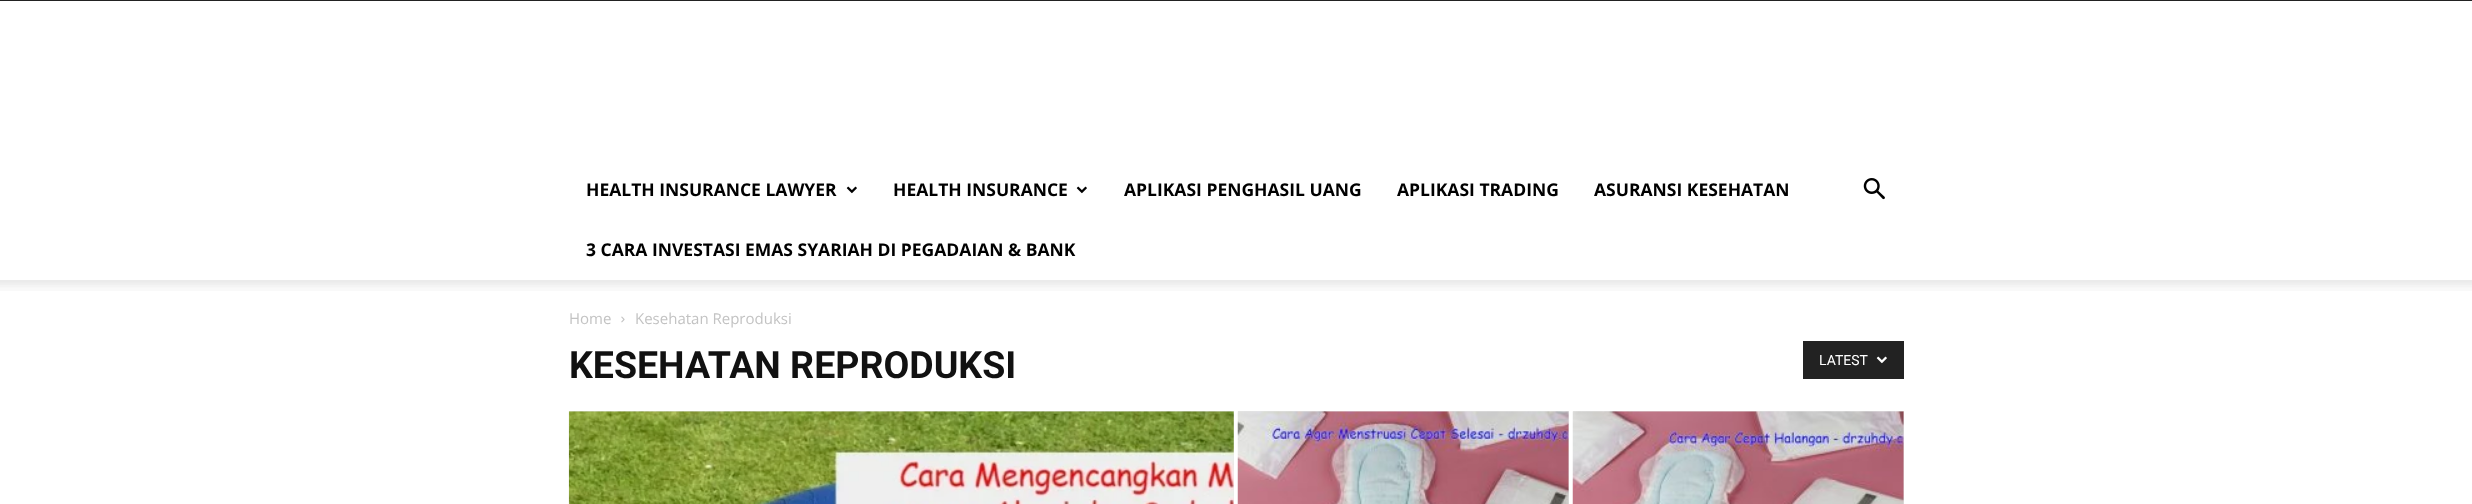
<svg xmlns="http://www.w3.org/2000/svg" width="2472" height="504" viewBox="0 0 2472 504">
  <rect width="100%" height="100%" fill="#ffffff"/>
  <rect x="0" y="0" width="2472" height="1" fill="#222222"/>
  <text x="586" y="196" font-family="Open Sans" font-size="17.5" font-weight="bold" fill="#000000">HEALTH INSURANCE LAWYER</text>
  <image x="846" y="186" width="11" height="8" href="img1.png"/>
  <text x="893" y="196" font-family="Open Sans" font-size="17.5" font-weight="bold" fill="#000000">HEALTH INSURANCE</text>
  <image x="1076" y="186" width="11" height="8" href="img1.png"/>
  <text x="1124" y="196" font-family="Open Sans" font-size="17.5" font-weight="bold" fill="#000000">APLIKASI PENGHASIL UANG</text>
  <text x="1397" y="196" font-family="Open Sans" font-size="17.5" font-weight="bold" fill="#000000">APLIKASI TRADING</text>
  <text x="1594" y="196" font-family="Open Sans" font-size="17.5" font-weight="bold" fill="#000000">ASURANSI KESEHATAN</text>
  <text x="586" y="256" font-family="Open Sans" font-size="17.5" font-weight="bold" fill="#000000">3 CARA INVESTASI EMAS SYARIAH DI PEGADAIAN &amp; BANK</text>
  <image x="1863" y="178" width="22" height="22" href="img2.png"/>
  <image x="0" y="280" width="2472" height="11" href="img3.png"/>
  <text x="569" y="324" font-family="Open Sans" font-size="15" fill="#c3c3c3">Home</text>
  <image x="621" y="316" width="4" height="7" href="img4.png"/>
  <text x="635" y="324" font-family="Open Sans" font-size="15" fill="#c3c3c3">Kesehatan Reproduksi</text>
  <text x="569" y="378" font-family="Roboto" font-size="37.5" font-weight="bold" fill="#111111">KESEHATAN REPRODUKSI</text>
  <rect x="1803" y="341" width="101" height="38" fill="#222222"/>
  <text x="1819" y="365" font-family="Roboto" font-size="14" fill="#ffffff">LATEST</text>
  <image x="1876" y="356" width="11" height="8" href="img5.png"/>
  <rect x="569" y="411" width="665" height="93" fill="#e5e5e5"/>
  <image x="568" y="411" width="666" height="93" href="img6.png"/>
  <rect x="1238" y="411" width="331" height="93" fill="#e5e5e5"/>
  <image x="1237" y="411" width="332" height="93" href="img7.png"/>
  <rect x="1573" y="411" width="331" height="93" fill="#e5e5e5"/>
  <image x="1572" y="411" width="332" height="93" href="img8.png"/>
</svg>
